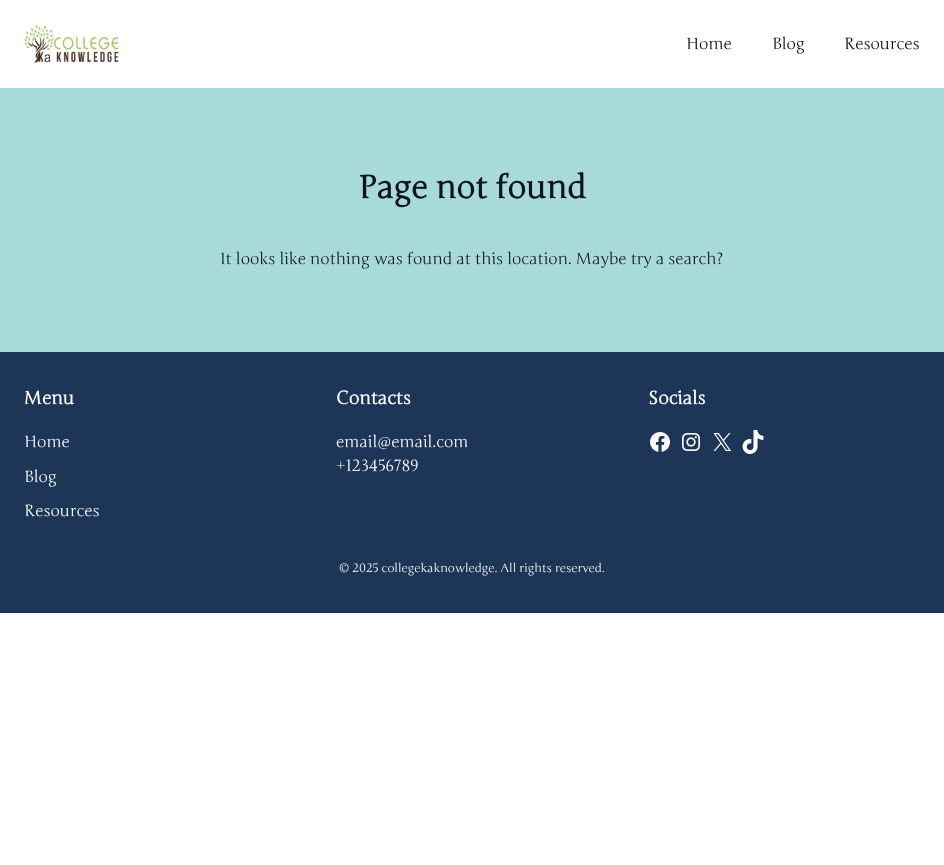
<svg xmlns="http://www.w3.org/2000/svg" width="944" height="865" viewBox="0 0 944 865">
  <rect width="100%" height="100%" fill="#ffffff"/>
  <image x="24" y="25" width="95" height="38" href="img1.png"/>
  <text x="686" y="49" font-family="Junge" font-size="16" fill="#000000">Home</text>
  <text x="772" y="49" font-family="Junge" font-size="16" fill="#000000">Blog</text>
  <text x="844" y="49" font-family="Junge" font-size="16" fill="#000000">Resources</text>
  <rect x="0" y="88" width="944" height="264" fill="#a8dadc"/>
  <text x="358" y="198" font-family="Junge" font-size="32" font-weight="bold" fill="#0d141a">Page not found</text>
  <text x="220" y="264" font-family="Junge" font-size="16" fill="#0d141a">It looks like nothing was found at this location. Maybe try a search?</text>
  <rect x="0" y="352" width="944" height="261" fill="#1d3557"/>
  <text x="24" y="404" font-family="Junge" font-size="18" font-weight="bold" fill="#ffffff">Menu</text>
  <text x="24" y="447" font-family="Junge" font-size="16" fill="#ffffff">Home</text>
  <text x="24" y="482" font-family="Junge" font-size="16" fill="#ffffff">Blog</text>
  <text x="24" y="516" font-family="Junge" font-size="16" fill="#ffffff">Resources</text>
  <text x="336" y="404" font-family="Junge" font-size="18" font-weight="bold" fill="#ffffff">Contacts</text>
  <text x="336" y="447" font-family="Junge" font-size="16" fill="#ffffff">email@email.com</text>
  <text x="336" y="471" font-family="Junge" font-size="16" fill="#ffffff">+123456789</text>
  <text x="648" y="404" font-family="Junge" font-size="18" font-weight="bold" fill="#ffffff">Socials</text>
  <image x="650" y="432" width="20" height="20" href="img2.png"/>
  <image x="682" y="433" width="18" height="18" href="img3.png"/>
  <image x="713" y="433" width="18" height="18" href="img4.png"/>
  <image x="742" y="430" width="22" height="24" href="img5.png"/>
  <text x="339" y="572" font-family="Junge" font-size="12" fill="#ffffff">© 2025 collegekaknowledge. All rights reserved.</text>
</svg>
